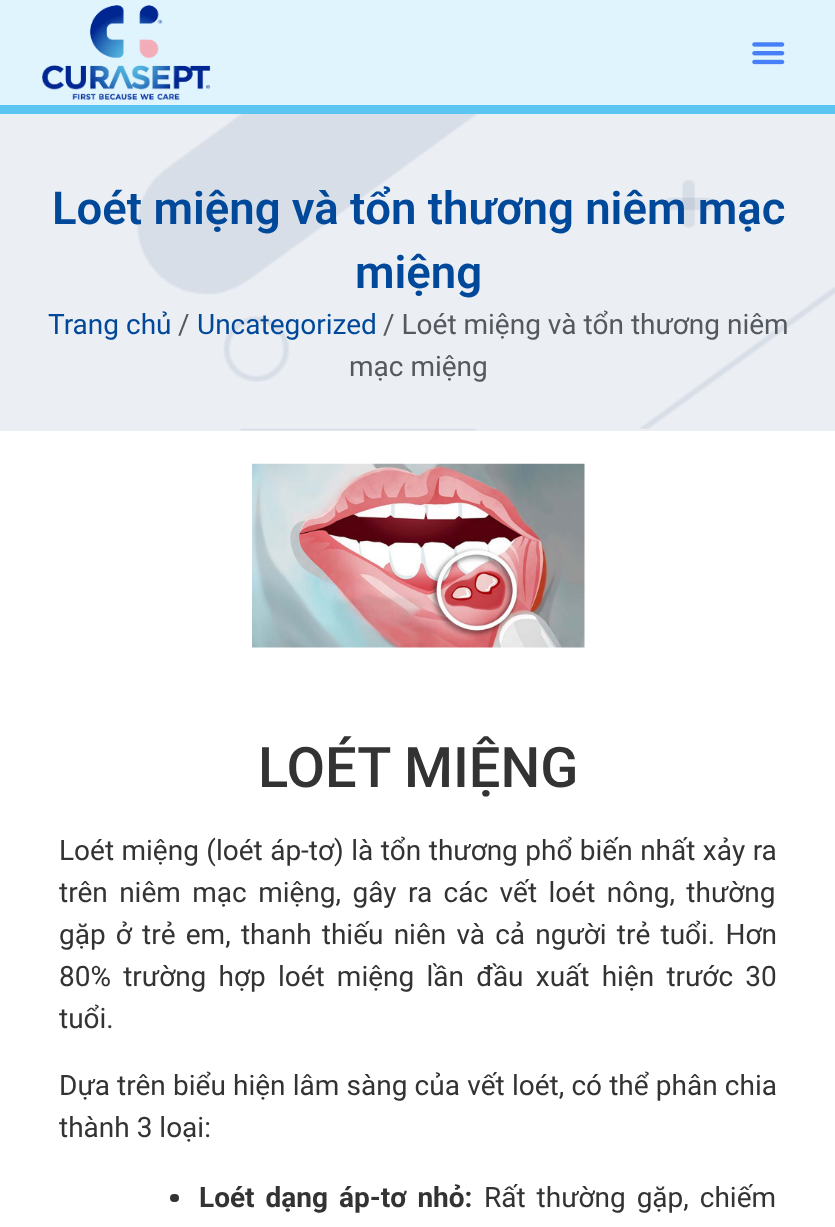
<svg xmlns="http://www.w3.org/2000/svg" width="835" height="1227" viewBox="0 0 835 1227">
  <rect width="100%" height="100%" fill="#ffffff"/>
  <rect x="0" y="0" width="835" height="105" fill="#e0f4fd"/>
  <rect x="0" y="105" width="835" height="9" fill="#5bc5f2"/>
  <image x="42" y="5" width="169" height="95" href="img1.png"/>
  <image x="752" y="42" width="33" height="23" href="img2.png"/>
  <rect x="0" y="430" width="835" height="1" fill="#f1f1f1"/>
  <image x="0" y="114" width="835" height="317" href="img3.png"/>
  <text x="52" y="224" font-family="Roboto" font-size="45.5" font-weight="600" fill="#004899">Loét miệng và tổn thương niêm mạc</text>
  <text x="355" y="288" font-family="Roboto" font-size="45.5" font-weight="600" fill="#004899">miệng</text>
  <text x="48" y="334" font-family="Roboto" font-size="28" fill="#004899">Trang chủ</text>
  <text x="178" y="334" font-family="Roboto" font-size="28" fill="#54595f">/</text>
  <text x="197" y="334" font-family="Roboto" font-size="28" fill="#004899">Uncategorized</text>
  <text x="383" y="334" font-family="Roboto" font-size="28" fill="#54595f">/ Loét miệng và tổn thương niêm</text>
  <text x="349" y="376" font-family="Roboto" font-size="28" fill="#54595f">mạc miệng</text>
  <image x="252" y="463" width="333" height="185" href="img4.png"/>
  <text x="258" y="787" font-family="Roboto" font-size="56" font-weight="500" fill="#333333">LOÉT MIỆNG</text>
  <text x="59" y="860" word-spacing="0.5" font-family="Roboto" font-size="28" fill="#333333">Loét miệng (loét áp-tơ) là tổn thương phổ biến nhất xảy ra</text>
  <text x="59" y="902" word-spacing="4.5" font-family="Roboto" font-size="28" fill="#333333">trên niêm mạc miệng, gây ra các vết loét nông, thường</text>
  <text x="59" y="944" word-spacing="3.25" font-family="Roboto" font-size="28" fill="#333333">gặp ở trẻ em, thanh thiếu niên và cả người trẻ tuổi. Hơn</text>
  <text x="59" y="986" word-spacing="5.25" font-family="Roboto" font-size="28" fill="#333333">80% trường hợp loét miệng lần đầu xuất hiện trước 30</text>
  <text x="59" y="1028" font-family="Roboto" font-size="28" fill="#333333">tuổi.</text>
  <text x="59" y="1095" word-spacing="0.25" font-family="Roboto" font-size="28" fill="#333333">Dựa trên biểu hiện lâm sàng của vết loét, có thể phân chia</text>
  <text x="59" y="1137" font-family="Roboto" font-size="28" fill="#333333">thành 3 loại:</text>
  <rect x="170" y="1194" width="9" height="8" rx="4" fill="#333333"/>
  <text x="199" y="1207" word-spacing="4" font-family="Roboto" font-size="28" font-weight="bold" fill="#333333">Loét dạng áp-tơ nhỏ:</text>
  <text x="484" y="1207" word-spacing="4" font-family="Roboto" font-size="28" fill="#333333">Rất thường gặp, chiếm</text>
</svg>
